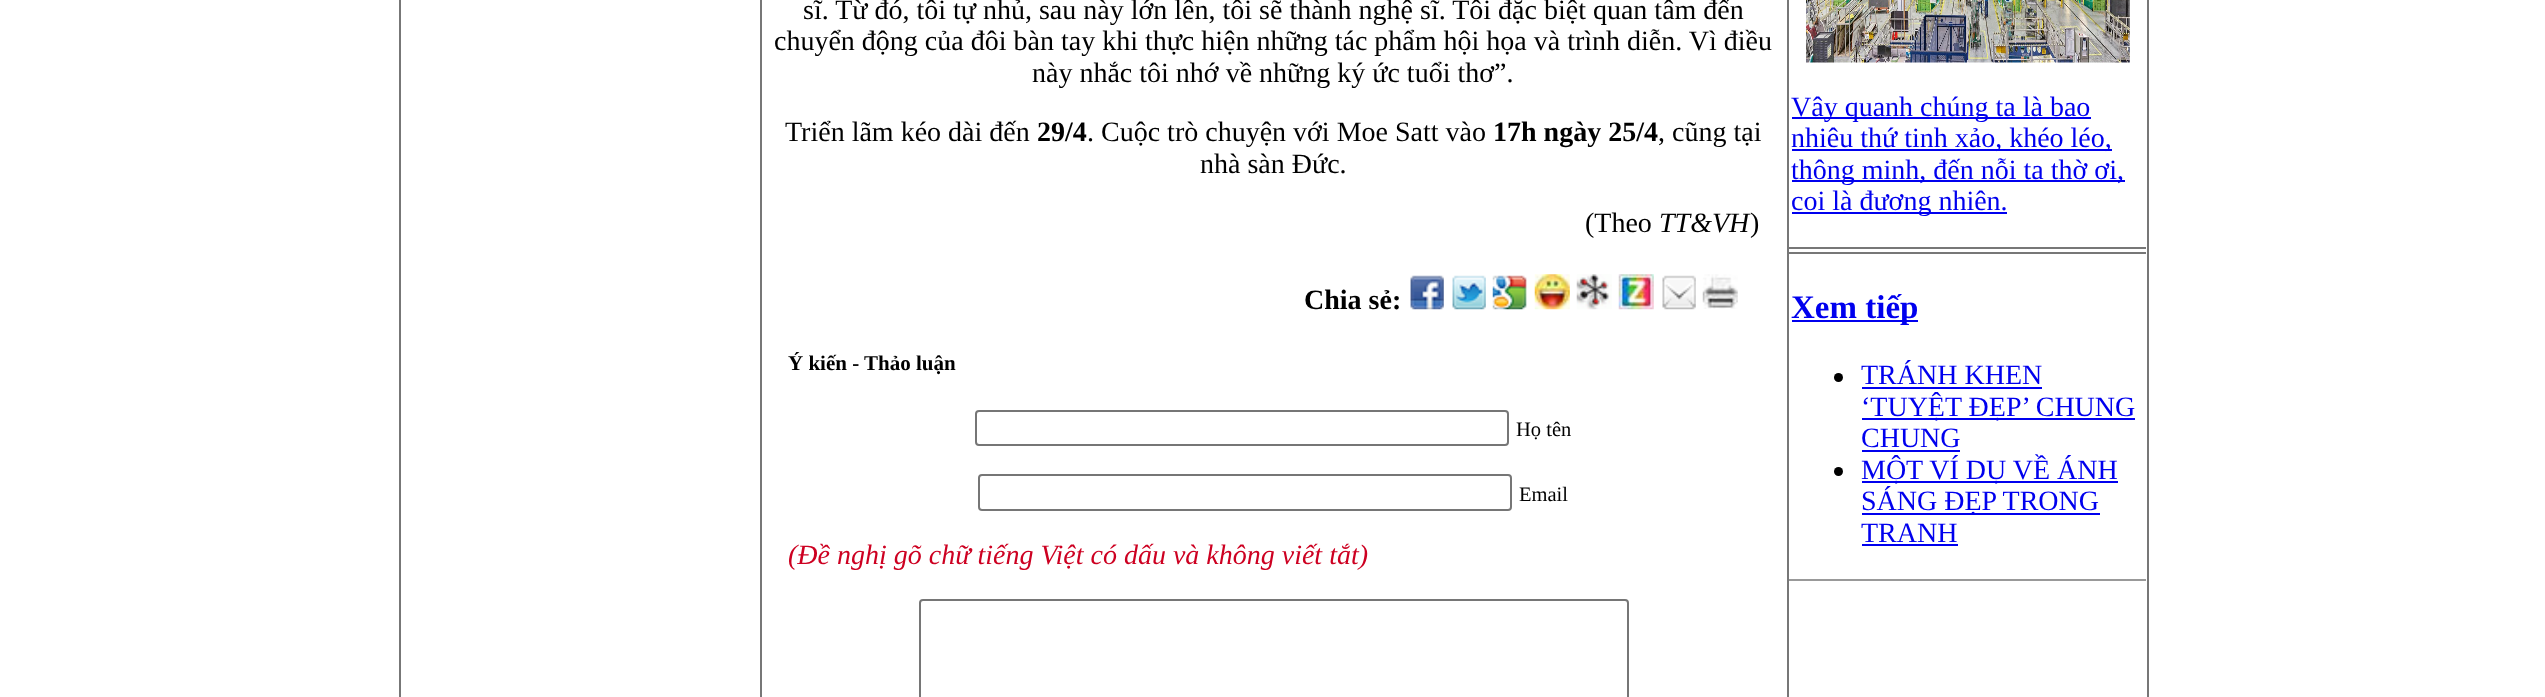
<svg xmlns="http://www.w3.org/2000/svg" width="2545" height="697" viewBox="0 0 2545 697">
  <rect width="100%" height="100%" fill="#ffffff"/>
  <rect x="2147" y="0" width="2" height="697" fill="#777777"/>
  <rect x="399" y="0" width="2" height="697" fill="#777777"/>
  <rect x="760" y="0" width="2" height="697" fill="#777777"/>
  <text x="803" y="19" font-family="Liberation Serif" font-size="28" fill="#000000">sĩ. Từ đó, tôi tự nhủ, sau này lớn lên, tôi sẽ thành nghệ sĩ. Tôi đặc biệt quan tâm đến</text>
  <text x="774" y="50" font-family="Liberation Serif" font-size="28" fill="#000000">chuyển động của đôi bàn tay khi thực hiện những tác phẩm hội họa và trình diễn. Vì điều</text>
  <text x="1032" y="82" font-family="Liberation Serif" font-size="28" fill="#000000">này nhắc tôi nhớ về những ký ức tuổi thơ”.</text>
  <text x="785" y="141" font-family="Liberation Serif" font-size="28" fill="#000000">Triển lãm kéo dài đến</text>
  <text x="1037" y="141" font-family="Liberation Serif" font-size="28" font-weight="bold" fill="#000000">29/4</text>
  <text x="1087" y="141" font-family="Liberation Serif" font-size="28" fill="#000000">. Cuộc trò chuyện với Moe Satt vào</text>
  <text x="1493" y="141" font-family="Liberation Serif" font-size="28" font-weight="bold" fill="#000000">17h ngày 25/4</text>
  <text x="1658" y="141" font-family="Liberation Serif" font-size="28" fill="#000000">, cũng tại</text>
  <text x="1200" y="173" font-family="Liberation Serif" font-size="28" fill="#000000">nhà sàn Đức.</text>
  <text x="1585" y="232" font-family="Liberation Serif" font-size="28" fill="#000000">(Theo</text>
  <text x="1659" y="232" font-family="Liberation Serif" font-size="28" font-style="italic" fill="#000000">TT&amp;VH</text>
  <text x="1750" y="232" font-family="Liberation Serif" font-size="28" fill="#000000">)</text>
  <text x="1304" y="309" font-family="Liberation Serif" font-size="28" font-weight="bold" fill="#000000">Chia sẻ:</text>
  <image x="1410" y="275" width="34" height="35" href="img1.png"/>
  <image x="1452" y="275" width="34" height="35" href="img2.png"/>
  <image x="1492" y="275" width="35" height="35" href="img3.png"/>
  <image x="1534" y="274" width="36" height="36" href="img4.png"/>
  <image x="1576" y="274" width="36" height="36" href="img5.png"/>
  <image x="1618" y="274" width="36" height="36" href="img6.png"/>
  <image x="1662" y="275" width="34" height="35" href="img7.png"/>
  <image x="1702" y="274" width="36" height="35" href="img8.png"/>
  <text x="788" y="370" font-family="Liberation Serif" font-size="21" font-weight="bold" fill="#000000">Ý kiến - Thảo luận</text>
  <rect x="976" y="411" width="532" height="34" rx="3" fill="none" stroke="#767676" stroke-width="2"/>
  <text x="1516" y="436" font-family="Liberation Serif" font-size="20.5" fill="#000000">Họ tên</text>
  <rect x="979" y="475" width="532" height="35" rx="3" fill="none" stroke="#767676" stroke-width="2"/>
  <text x="1519" y="501" font-family="Liberation Serif" font-size="20.5" fill="#000000">Email</text>
  <text x="788" y="564" font-family="Liberation Serif" font-size="28" font-style="italic" fill="#cd0021">(Đề nghị gõ chữ tiếng Việt có dấu và không viết tắt)</text>
  <rect x="920" y="600" width="708" height="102" rx="3" fill="none" stroke="#767676" stroke-width="2"/>
  <rect x="1787" y="0" width="2" height="697" fill="#777777"/>
  <rect x="1789" y="247" width="357" height="2" fill="#777777"/>
  <image x="1806" y="0" width="324" height="63" href="img9.png"/>
  <rect x="1792" y="117" width="299" height="2" fill="#0000ee"/>
  <text x="1791" y="116" font-family="Liberation Serif" font-size="28" fill="#0000ee">Vây quanh chúng ta là bao</text>
  <rect x="1792" y="149" width="320" height="2" fill="#0000ee"/>
  <text x="1791" y="147" font-family="Liberation Serif" font-size="28" fill="#0000ee">nhiêu thứ tinh xảo, khéo léo,</text>
  <rect x="1792" y="180" width="333" height="2" fill="#0000ee"/>
  <text x="1791" y="179" font-family="Liberation Serif" font-size="28" fill="#0000ee">thông minh, đến nỗi ta thờ ơi,</text>
  <rect x="1792" y="212" width="215" height="2" fill="#0000ee"/>
  <text x="1791" y="210" font-family="Liberation Serif" font-size="28" fill="#0000ee">coi là đương nhiên.</text>
  <rect x="1789" y="252" width="357" height="2" fill="#777777"/>
  <rect x="1789" y="579" width="357" height="2" fill="#999999"/>
  <rect x="1792" y="320" width="126" height="2" fill="#0000ee"/>
  <text x="1791" y="318" font-family="Liberation Serif" font-size="33" font-weight="bold" fill="#0000ee">Xem tiếp</text>
  <circle cx="1838.5" cy="377.5" r="4.5" fill="#000000"/>
  <text x="1861" y="384" font-family="Liberation Serif" font-size="28" fill="#0000ee">TRÁNH KHEN</text>
  <rect x="1862" y="387" width="180" height="2" fill="#0000ee"/>
  <rect x="1862" y="418" width="273" height="2" fill="#0000ee"/>
  <text x="1861" y="416" font-family="Liberation Serif" font-size="28" fill="#0000ee">‘TUYỆT ĐẸP’ CHUNG</text>
  <text x="1861" y="447" font-family="Liberation Serif" font-size="28" fill="#0000ee">CHUNG</text>
  <rect x="1862" y="450" width="98" height="2" fill="#0000ee"/>
  <circle cx="1838.5" cy="471.5" r="4.5" fill="#000000"/>
  <rect x="1862" y="481" width="256" height="2" fill="#0000ee"/>
  <text x="1861" y="479" font-family="Liberation Serif" font-size="28" fill="#0000ee">MỘT VÍ DỤ VỀ ÁNH</text>
  <rect x="1862" y="513" width="238" height="2" fill="#0000ee"/>
  <text x="1861" y="510" font-family="Liberation Serif" font-size="28" fill="#0000ee">SÁNG ĐẸP TRONG</text>
  <text x="1861" y="542" font-family="Liberation Serif" font-size="28" fill="#0000ee">TRANH</text>
  <rect x="1862" y="544" width="96" height="2" fill="#0000ee"/>
</svg>
